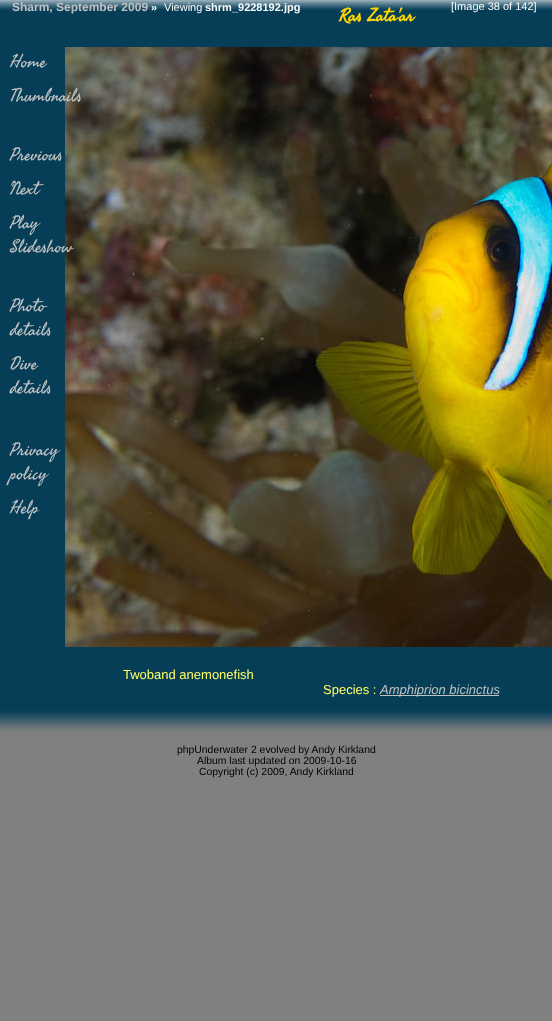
<svg xmlns="http://www.w3.org/2000/svg" width="552" height="1021" viewBox="0 0 552 1021">
  <rect width="100%" height="100%" fill="#808080"/>
  <rect x="0" y="10" width="552" height="701" fill="#063e58"/>
  <image x="0" y="0" width="552" height="10" href="img1.png"/>
  <text x="12" y="11" font-family="Liberation Sans" font-size="12" font-weight="bold" fill="#c0c0c0">Sharm, September 2009</text>
  <text x="151" y="11" font-family="Liberation Sans" font-size="11" font-weight="bold" fill="#fafafa">»</text>
  <text x="164" y="11" font-family="Liberation Sans" font-size="11" fill="#fafafa">Viewing</text>
  <text x="205" y="11" font-family="Liberation Sans" font-size="11" font-weight="bold" fill="#fafafa">shrm_9228192.jpg</text>
  <text x="339" y="21" font-family="Seaweed Script" font-size="18" font-weight="bold" fill="#ffd700">Ras Zata'ar</text>
  <text x="451" y="10" font-family="Liberation Sans" font-size="11" fill="#fafafa">[Image 38 of 142]</text>
  <text x="10" y="67" font-family="Seaweed Script" font-size="18" fill="#c0c0c0">Home</text>
  <image x="65" y="47" width="487" height="600" href="img2.png"/>
  <text x="10" y="101" font-family="Seaweed Script" font-size="18" fill="#c0c0c0">Thumbnails</text>
  <text x="10" y="160" font-family="Seaweed Script" font-size="18" fill="#c0c0c0">Previous</text>
  <text x="10" y="194" font-family="Seaweed Script" font-size="18" fill="#c0c0c0">Next</text>
  <text x="10" y="228" font-family="Seaweed Script" font-size="18" fill="#c0c0c0">Play</text>
  <text x="10" y="252" font-family="Seaweed Script" font-size="18" fill="#c0c0c0">Slideshow</text>
  <text x="10" y="311" font-family="Seaweed Script" font-size="18" fill="#c0c0c0">Photo</text>
  <text x="10" y="335" font-family="Seaweed Script" font-size="18" fill="#c0c0c0">details</text>
  <text x="10" y="369" font-family="Seaweed Script" font-size="18" fill="#c0c0c0">Dive</text>
  <text x="10" y="393" font-family="Seaweed Script" font-size="18" fill="#c0c0c0">details</text>
  <text x="10" y="455" font-family="Seaweed Script" font-size="18" fill="#c0c0c0">Privacy</text>
  <text x="10" y="479" font-family="Seaweed Script" font-size="18" fill="#c0c0c0">policy</text>
  <text x="10" y="513" font-family="Seaweed Script" font-size="18" fill="#c0c0c0">Help</text>
  <text x="123" y="679" font-family="Liberation Sans" font-size="13" fill="#ffff66">Twoband anemonefish</text>
  <text x="323" y="694" font-family="Liberation Sans" font-size="13" fill="#ffff66">Species :</text>
  <rect x="380" y="695" width="119" height="1" fill="#c0c0c0"/>
  <text x="380" y="694" font-family="Liberation Sans" font-size="13" font-style="italic" fill="#c0c0c0">Amphiprion bicinctus</text>
  <image x="0" y="711" width="552" height="23" href="img3.png"/>
  <text x="177" y="753" font-family="Liberation Sans" font-size="10.4" fill="#000000">phpUnderwater 2 evolved by Andy Kirkland</text>
  <text x="197" y="764" font-family="Liberation Sans" font-size="10.4" fill="#000000">Album last updated on 2009-10-16</text>
  <text x="199" y="775" font-family="Liberation Sans" font-size="10.4" fill="#000000">Copyright (c) 2009, Andy Kirkland</text>
</svg>
